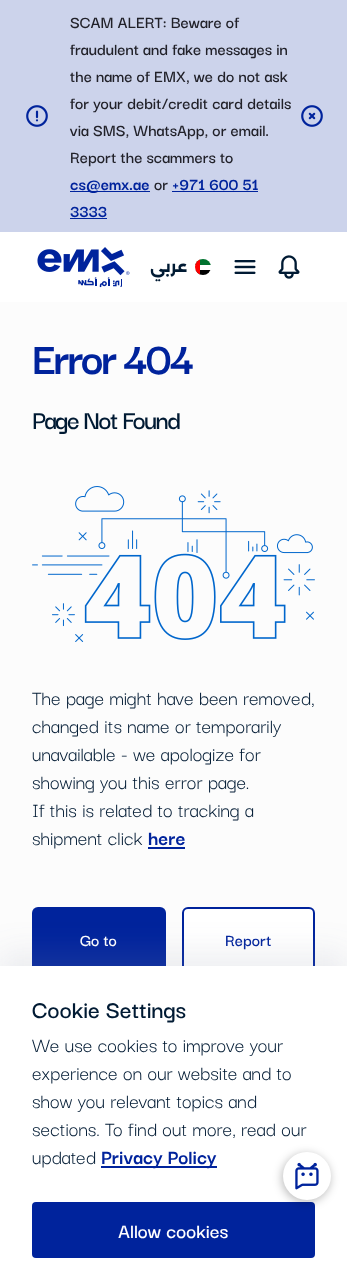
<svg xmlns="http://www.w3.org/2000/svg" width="347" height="1286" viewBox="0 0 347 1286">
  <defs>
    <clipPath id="clip1"><rect x="195" y="259" width="16" height="16" rx="8"/></clipPath>
    <filter id="blur1" x="-50%" y="-200%" width="200%" height="500%"><feGaussianBlur stdDeviation="15"/></filter>
    <filter id="blur2" x="-50%" y="-200%" width="200%" height="500%"><feGaussianBlur stdDeviation="5"/></filter>
  </defs>
  <rect width="100%" height="100%" fill="#fcfcfc"/>
  <rect x="0" y="0" width="347" height="232" fill="#ccd3eb"/>
  <image x="26" y="105" width="22" height="22" href="img1.png"/>
  <text x="70" y="28" font-family="Darker Grotesque" font-size="18" font-weight="600" fill="#212129">SCAM ALERT: Beware of</text>
  <text x="70" y="55" font-family="Darker Grotesque" font-size="18" font-weight="600" fill="#212129">fraudulent and fake messages in</text>
  <text x="70" y="82" font-family="Darker Grotesque" font-size="18" font-weight="600" fill="#212129">the name of EMX, we do not ask</text>
  <text x="70" y="109" font-family="Darker Grotesque" font-size="18" font-weight="600" fill="#212129">for your debit/credit card details</text>
  <text x="70" y="136" font-family="Darker Grotesque" font-size="18" font-weight="600" fill="#212129">via SMS, WhatsApp, or email.</text>
  <text x="70" y="163" font-family="Darker Grotesque" font-size="18" font-weight="600" fill="#212129">Report the scammers to</text>
  <rect x="70" y="191" width="80" height="1" fill="#00239c"/>
  <text x="70" y="190" font-family="Darker Grotesque" font-size="18" font-weight="bold" fill="#00239c">cs@emx.ae</text>
  <text x="154" y="190" font-family="Darker Grotesque" font-size="18" font-weight="600" fill="#212129">or</text>
  <text x="172" y="190" font-family="Darker Grotesque" font-size="18" font-weight="bold" fill="#00239c">+971 600 51</text>
  <rect x="172" y="191" width="86" height="1" fill="#00239c"/>
  <text x="70" y="217" font-family="Darker Grotesque" font-size="18" font-weight="bold" fill="#00239c">3333</text>
  <rect x="70" y="218" width="37" height="1" fill="#00239c"/>
  <image x="301" y="105" width="22" height="22" href="img2.png"/>
  <rect x="0" y="232" width="347" height="70" fill="#ffffff"/>
  <image x="37" y="247" width="93" height="41" href="img3.png"/>
  <text x="187" y="272" font-family="Alexandria" font-size="16" font-weight="bold" direction="rtl" fill="#001a33">عربي</text>
  <g clip-path="url(#clip1)">
    <rect x="195" y="259" width="16" height="6" fill="#00732f"/>
    <rect x="195" y="270" width="16" height="5" fill="#000000"/>
    <rect x="195" y="259" width="5" height="16" fill="#ff0000"/>
  </g>
  <image x="234" y="260" width="22" height="14" href="img4.png"/>
  <image x="278" y="255" width="22" height="24" href="img5.png"/>
  <text x="32" y="374" font-family="Darker Grotesque" font-size="48" font-weight="bold" letter-spacing="-2.5" fill="#00239c">Error 404</text>
  <text x="32" y="429" font-family="Darker Grotesque" font-size="28" font-weight="600" letter-spacing="-1.4" fill="#001a33">Page Not Found</text>
  <image x="32" y="486" width="283" height="156" href="img6.png"/>
  <text x="32" y="705" font-family="Darker Grotesque" font-size="21.6" fill="#001a33">The page might have been removed,</text>
  <text x="32" y="733" font-family="Darker Grotesque" font-size="21.6" fill="#001a33">changed its name or temporarily</text>
  <text x="32" y="761" font-family="Darker Grotesque" font-size="21.6" fill="#001a33">unavailable - we apologize for</text>
  <text x="32" y="789" font-family="Darker Grotesque" font-size="21.6" fill="#001a33">showing you this error page.</text>
  <text x="32" y="817" font-family="Darker Grotesque" font-size="21.6" fill="#001a33">If this is related to tracking a</text>
  <text x="32" y="845" font-family="Darker Grotesque" font-size="21.6" fill="#001a33">shipment click</text>
  <text x="148" y="845" font-family="Darker Grotesque" font-size="21.6" font-weight="bold" fill="#00239c">here</text>
  <rect x="148" y="847" width="37" height="2" fill="#00239c"/>
  <rect x="32" y="907" width="134" height="100" rx="6" fill="#00239c"/>
  <text x="80" y="946" font-family="Darker Grotesque" font-size="18" font-weight="600" fill="#ffffff">Go to</text>
  <rect x="183" y="908" width="131" height="98" rx="5" fill="#ffffff" stroke="#00239c" stroke-width="2"/>
  <text x="225" y="946" font-family="Darker Grotesque" font-size="18" font-weight="600" fill="#00239c">Report</text>
  <rect x="0" y="952" width="347" height="320" fill="#8e96a6" fill-opacity="0.15" filter="url(#blur1)"/>
  <rect x="0" y="966" width="347" height="320" fill="#ffffff"/>
  <text x="32" y="1018" font-family="Darker Grotesque" font-size="26" font-weight="600" fill="#001a33">Cookie Settings</text>
  <text x="32" y="1052" font-family="Darker Grotesque" font-size="21.6" fill="#001a33">We use cookies to improve your</text>
  <text x="32" y="1080" font-family="Darker Grotesque" font-size="21.6" fill="#001a33">experience on our website and to</text>
  <text x="32" y="1108" font-family="Darker Grotesque" font-size="21.6" fill="#001a33">show you relevant topics and</text>
  <text x="32" y="1136" font-family="Darker Grotesque" font-size="21.6" fill="#001a33">sections. To find out more, read our</text>
  <text x="32" y="1164" font-family="Darker Grotesque" font-size="21.6" fill="#001a33">updated</text>
  <rect x="101" y="1166" width="116" height="2" fill="#00239c"/>
  <text x="101" y="1164" font-family="Darker Grotesque" font-size="21.6" font-weight="bold" fill="#00239c">Privacy Policy</text>
  <rect x="32" y="1202" width="283" height="56" rx="4" fill="#00239c"/>
  <text x="118" y="1238" font-family="Darker Grotesque" font-size="21.6" font-weight="600" fill="#ffffff">Allow cookies</text>
  <rect x="282" y="1154" width="48" height="48" rx="24" fill="#000000" fill-opacity="0.28" filter="url(#blur2)"/>
  <circle cx="307" cy="1176" r="24" fill="#ffffff"/>
  <image x="295" y="1162" width="24" height="28" href="img7.png"/>
</svg>
